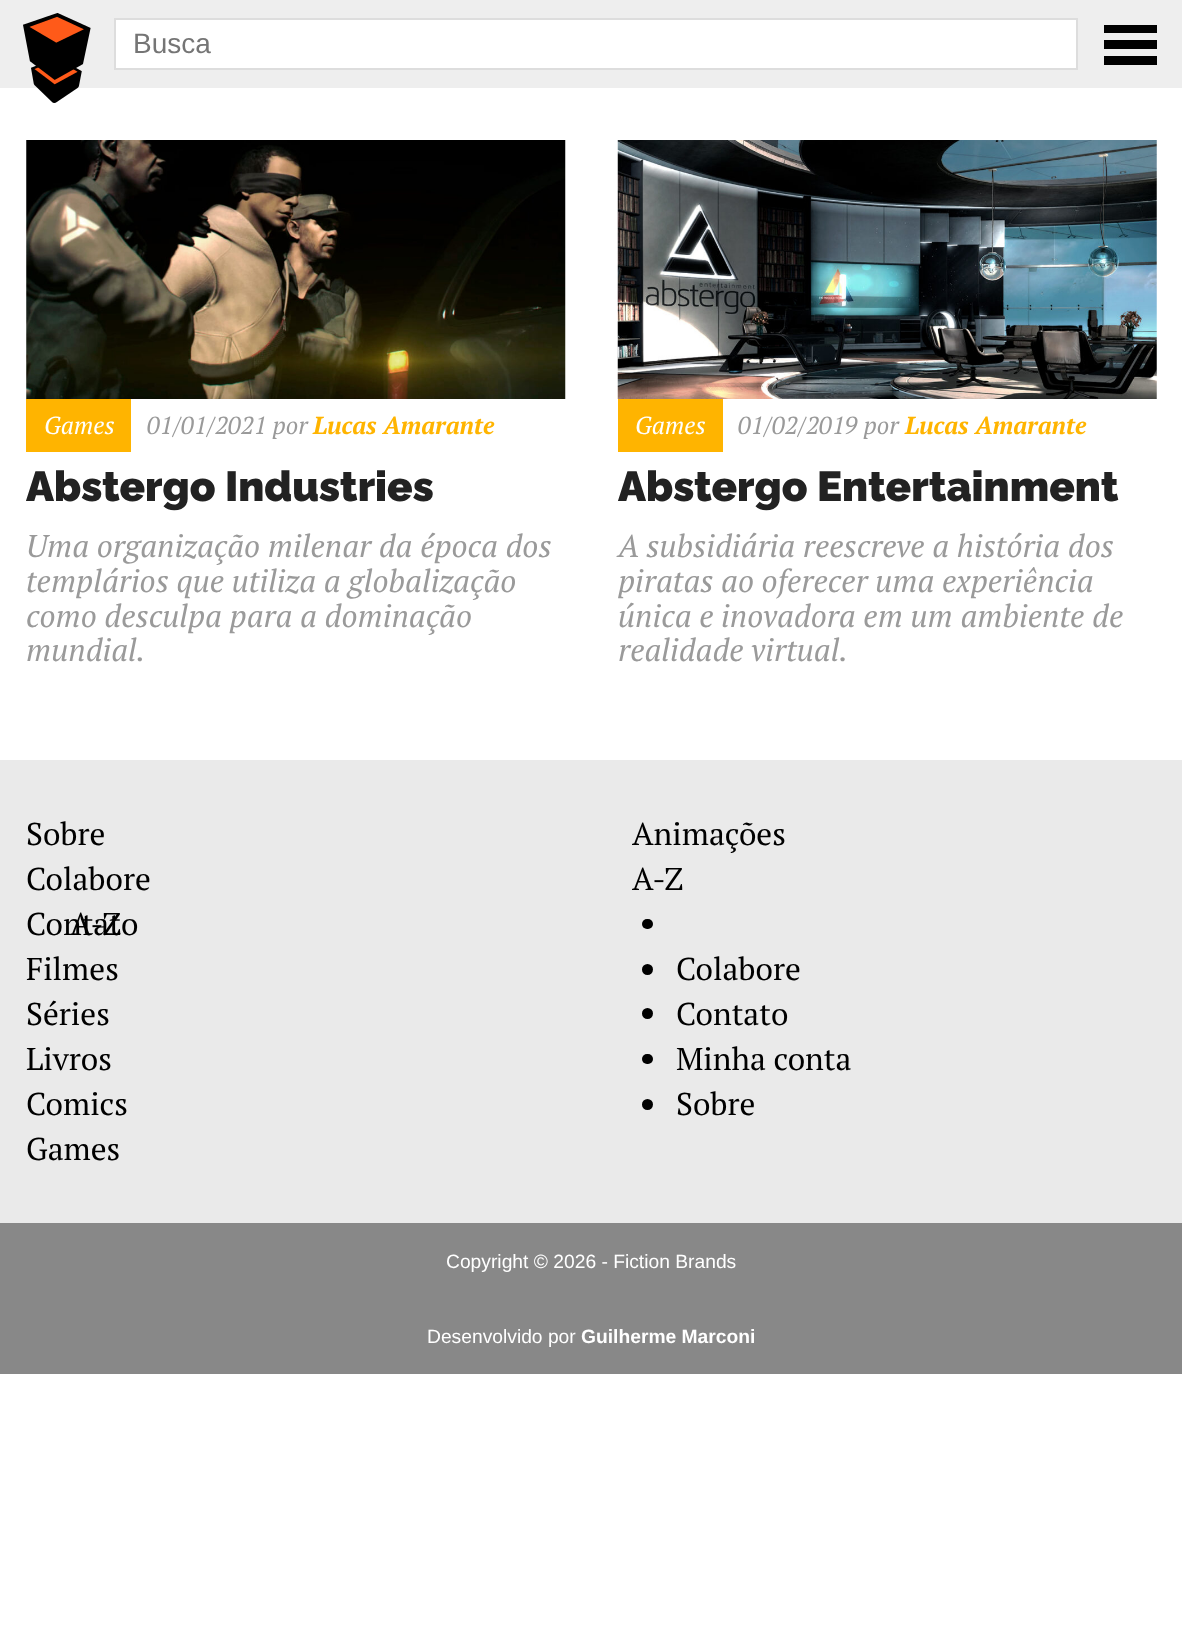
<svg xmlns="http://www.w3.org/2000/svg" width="1182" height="1626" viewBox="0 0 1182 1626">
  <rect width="100%" height="100%" fill="#ffffff"/>
  <rect x="0" y="0" width="1182" height="88" fill="#eeeeee"/>
  <image x="23" y="13" width="68" height="90" href="img1.png"/>
  <rect x="115" y="19" width="962" height="50" fill="#ffffff" stroke="#dddddd" stroke-width="2"/>
  <text x="133" y="53" font-family="Liberation Sans" font-size="28" fill="#757575">Busca</text>
  <rect x="1104" y="40" width="53" height="9" fill="#000000"/>
  <rect x="1104" y="25" width="53" height="8" fill="#000000"/>
  <rect x="1104" y="56" width="53" height="9" fill="#000000"/>
  <image x="26" y="140" width="540" height="259" href="img2.png"/>
  <rect x="26" y="399" width="105" height="53" fill="#ffb400"/>
  <text x="44" y="434" font-family="PT Serif" font-size="24.5" font-style="italic" fill="#ffffff">Games</text>
  <text x="147" y="434" font-family="PT Serif" font-size="24.5" font-style="italic" fill="#9a9a9a">01/01/2021 por</text>
  <text x="313" y="434" font-family="PT Serif" font-size="24.5" font-weight="bold" font-style="italic" fill="#ffb400">Lucas Amarante</text>
  <text x="26" y="501" font-family="Raleway" font-size="42" font-weight="100" fill="#222222">Abstergo Industries</text>
  <text x="26" y="557" font-family="PT Serif" font-size="31.5" font-style="italic" fill="#9a9a9a">Uma organização milenar da época dos</text>
  <text x="26" y="592" font-family="PT Serif" font-size="31.5" font-style="italic" fill="#9a9a9a">templários que utiliza a globalização</text>
  <text x="26" y="627" font-family="PT Serif" font-size="31.5" font-style="italic" fill="#9a9a9a">como desculpa para a dominação</text>
  <text x="26" y="661" font-family="PT Serif" font-size="31.5" font-style="italic" fill="#9a9a9a">mundial.</text>
  <image x="617" y="140" width="540" height="259" href="img3.png"/>
  <rect x="618" y="399" width="105" height="53" fill="#ffb400"/>
  <text x="635" y="434" font-family="PT Serif" font-size="24.5" font-style="italic" fill="#ffffff">Games</text>
  <text x="738" y="434" font-family="PT Serif" font-size="24.5" font-style="italic" fill="#9a9a9a">01/02/2019 por</text>
  <text x="905" y="434" font-family="PT Serif" font-size="24.5" font-weight="bold" font-style="italic" fill="#ffb400">Lucas Amarante</text>
  <text x="618" y="501" font-family="Raleway" font-size="42" font-weight="100" fill="#222222">Abstergo Entertainment</text>
  <text x="618" y="557" font-family="PT Serif" font-size="31.5" font-style="italic" fill="#9a9a9a">A subsidiária reescreve a história dos</text>
  <text x="618" y="592" font-family="PT Serif" font-size="31.5" font-style="italic" fill="#9a9a9a">piratas ao oferecer uma experiência</text>
  <text x="618" y="627" font-family="PT Serif" font-size="31.5" font-style="italic" fill="#9a9a9a">única e inovadora em um ambiente de</text>
  <text x="618" y="661" font-family="PT Serif" font-size="31.5" font-style="italic" fill="#9a9a9a">realidade virtual.</text>
  <rect x="0" y="760" width="1182" height="463" fill="#eaeaea"/>
  <text x="26" y="845" font-family="PT Serif" font-size="31.5" fill="#000000">Sobre</text>
  <text x="26" y="890" font-family="PT Serif" font-size="31.5" fill="#000000">Colabore</text>
  <text x="70" y="935" font-family="PT Serif" font-size="31.5" fill="#000000">A-Z</text>
  <text x="26" y="935" font-family="PT Serif" font-size="31.5" fill="#000000">Contato</text>
  <text x="632" y="845" font-family="PT Serif" font-size="31.5" fill="#000000">Animações</text>
  <text x="632" y="890" font-family="PT Serif" font-size="31.5" fill="#000000">A-Z</text>
  <text x="26" y="980" font-family="PT Serif" font-size="31.5" fill="#000000">Filmes</text>
  <text x="26" y="1025" font-family="PT Serif" font-size="31.5" fill="#000000">Séries</text>
  <text x="26" y="1070" font-family="PT Serif" font-size="31.5" fill="#000000">Livros</text>
  <text x="26" y="1115" font-family="PT Serif" font-size="31.5" fill="#000000">Comics</text>
  <text x="26" y="1160" font-family="PT Serif" font-size="31.5" fill="#000000">Games</text>
  <rect x="642" y="919" width="11" height="10" rx="5" fill="#000000"/>
  <circle cx="647.5" cy="969.5" r="5.5" fill="#000000"/>
  <text x="676" y="980" font-family="PT Serif" font-size="31.5" fill="#000000">Colabore</text>
  <circle cx="647.5" cy="1013.5" r="5.5" fill="#000000"/>
  <text x="676" y="1025" font-family="PT Serif" font-size="31.5" fill="#000000">Contato</text>
  <rect x="642" y="1054" width="11" height="10" rx="5" fill="#000000"/>
  <text x="676" y="1070" font-family="PT Serif" font-size="31.5" fill="#000000">Minha conta</text>
  <circle cx="647.5" cy="1104.5" r="5.5" fill="#000000"/>
  <text x="676" y="1115" font-family="PT Serif" font-size="31.5" fill="#000000">Sobre</text>
  <rect x="0" y="1223" width="1182" height="151" fill="#888888"/>
  <text x="446" y="1268" font-family="Liberation Sans" font-size="19.25" fill="#ffffff">Copyright © 2026 - Fiction Brands</text>
  <text x="427" y="1343" font-family="Liberation Sans" font-size="19.25" fill="#ffffff">Desenvolvido por</text>
  <text x="581" y="1343" font-family="Liberation Sans" font-size="19.25" font-weight="bold" fill="#ffffff">Guilherme Marconi</text>
</svg>
